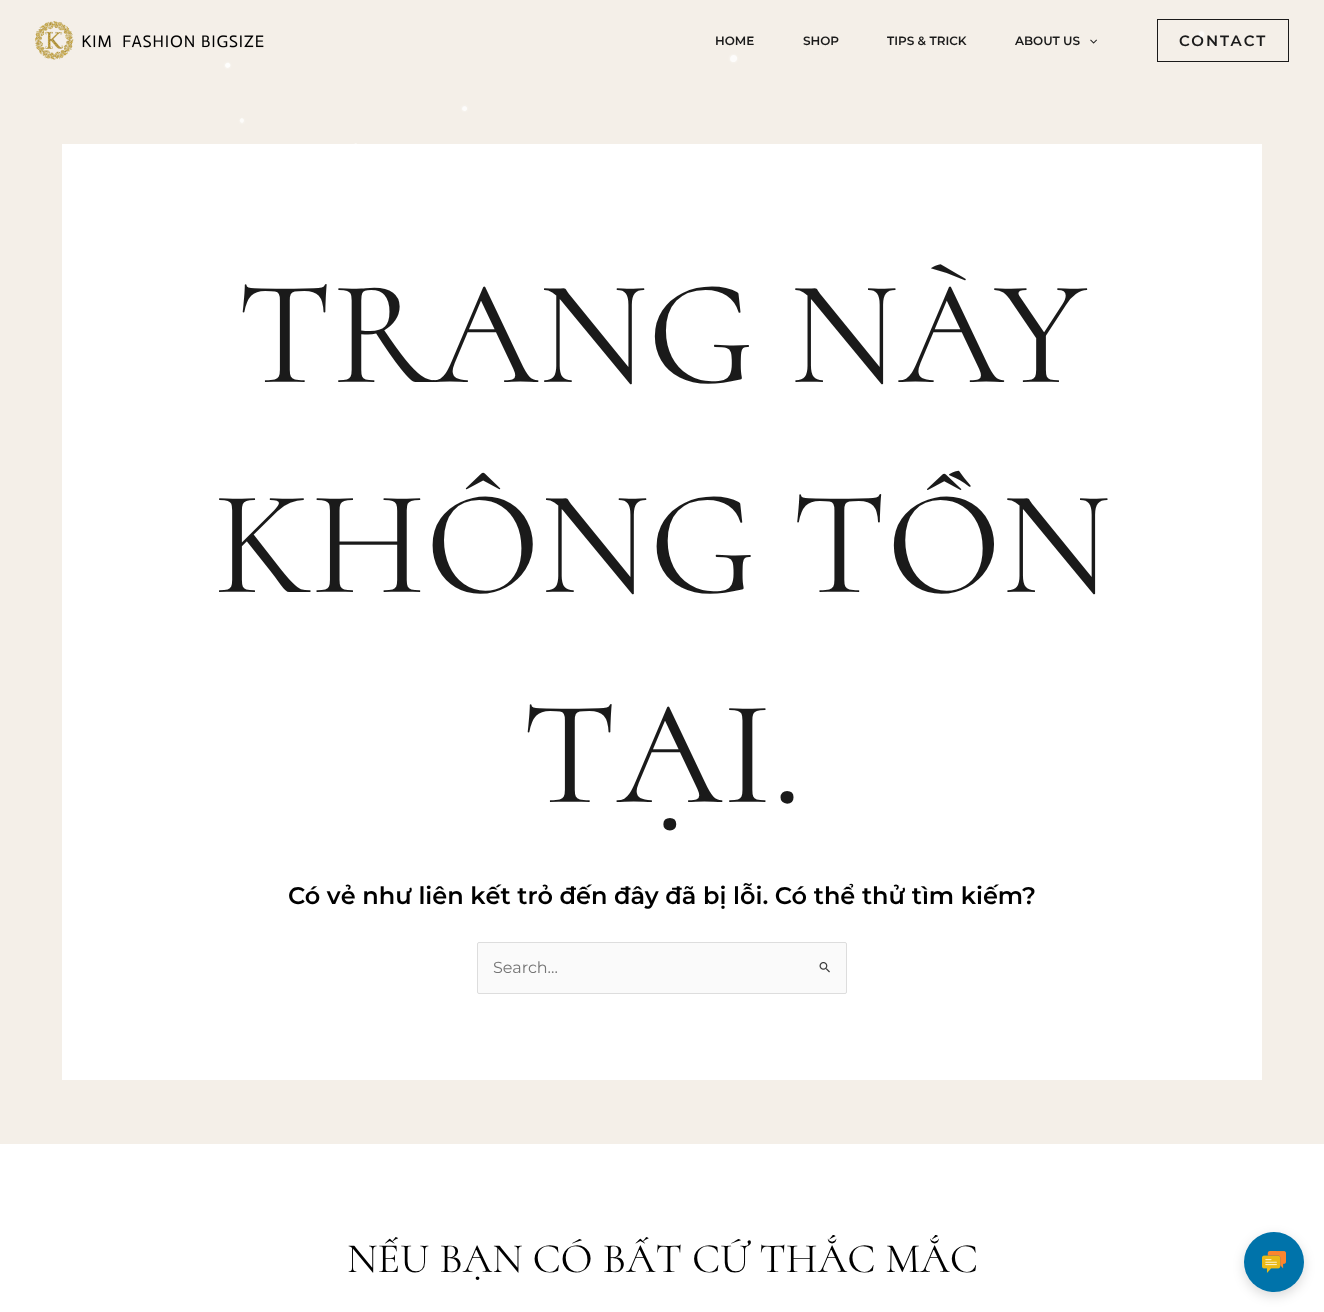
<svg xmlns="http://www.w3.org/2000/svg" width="1324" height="1312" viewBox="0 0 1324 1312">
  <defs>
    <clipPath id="clip1"><path d="M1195 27H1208V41H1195ZM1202.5 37C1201.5 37.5 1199.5 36.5 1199 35.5C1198.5 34 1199 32.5 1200.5 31.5C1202 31 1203.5 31.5 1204 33C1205 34.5 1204 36 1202.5 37Z" clip-rule="evenodd"/></clipPath>
    <filter id="blur1" x="-50%" y="-200%" width="200%" height="500%"><feGaussianBlur stdDeviation="1"/></filter>
    <filter id="blur2" x="-50%" y="-200%" width="200%" height="500%"><feGaussianBlur stdDeviation="6"/></filter>
  </defs>
  <rect width="100%" height="100%" fill="#f4efe8"/>
  <rect x="1157.5" y="19.5" width="131" height="42" fill="none" stroke="#1a1a1a"/>
  <g clip-path="url(#clip1)">
    <rect x="1199" y="31" width="5" height="6" rx="2.5" fill="#ffffff" fill-opacity="0.56" filter="url(#blur1)"/>
  </g>
  <text x="1179" y="46" font-family="Montserrat" font-size="15" font-weight="600" letter-spacing="2" fill="#1a1a1a">CONTACT</text>
  <path d="M1202.5 37C1199.5 38 1197 33 1200.5 31.5C1204 30 1206 35.5 1202.5 37Z" fill="#ffffff" fill-opacity="0.7"/>
  <image x="35" y="21" width="229" height="39" href="img1.png"/>
  <rect x="225" y="63" width="5" height="5" rx="2.5" fill="#fefefd" fill-opacity="0.8" filter="url(#blur1)"/>
  <path d="M226 63.5C228.5 61 232 64.5 229.5 67C227 69.5 223.5 65.5 226 63.5Z" fill="#fefefd"/>
  <rect x="730" y="55" width="7" height="7" rx="3.5" fill="#fdfcfb" fill-opacity="0.8" filter="url(#blur1)"/>
  <path d="M735.5 55.5C739.5 58 735.5 64 731.5 61.5C728 59 732 53 735.5 55.5Z" fill="#fdfcfb"/>
  <rect x="462" y="106" width="5" height="5" rx="2.5" fill="#fdfcfb" fill-opacity="0.8" filter="url(#blur1)"/>
  <path d="M466.5 110C464.5 112.5 460.5 109.5 463 107C465 104.5 468.5 108 466.5 110Z" fill="#fdfcfb"/>
  <rect x="240" y="119" width="4" height="4" rx="2" fill="#fdfcfa" fill-opacity="0.8" filter="url(#blur1)"/>
  <path d="M243.5 119C245 121.5 242 124 240.5 122C238.5 120 241.5 117 243.5 119Z" fill="#fdfcfa"/>
  <rect x="62" y="144" width="1200" height="936" fill="#ffffff"/>
  <path d="M354 144.5C355 142 359 144 357.5 146.5C356 149 352.5 146.5 354 144.5Z" fill="#ffffff" fill-opacity="0.64"/>
  <text x="715" y="45" font-family="Montserrat" font-size="12" font-weight="600" fill="#1a1a1a">HOME</text>
  <text x="803" y="45" font-family="Montserrat" font-size="12" font-weight="600" fill="#1a1a1a">SHOP</text>
  <text x="887" y="45" font-family="Montserrat" font-size="12" font-weight="600" fill="#1a1a1a">TIPS &amp; TRICK</text>
  <text x="1015" y="45" font-family="Montserrat" font-size="12" font-weight="600" fill="#1a1a1a">ABOUT US</text>
  <image x="1090" y="39" width="7" height="5" href="img2.png"/>
  <text x="237" y="382" font-family="Cormorant SC" font-size="150" fill="#1a1a1a">TRANG NÀY</text>
  <text x="214" y="592" font-family="Cormorant SC" font-size="150" fill="#1a1a1a">KHÔNG TỒN</text>
  <text x="522" y="802" font-family="Cormorant SC" font-size="150" fill="#1a1a1a">TẠI.</text>
  <text x="288" y="904" font-family="Montserrat" font-size="24" font-weight="600" fill="#000000">Có vẻ như liên kết trỏ đến đây đã bị lỗi. Có thể thử tìm kiếm?</text>
  <rect x="477.5" y="942.5" width="369" height="51" rx="1.5" fill="#fafafa" stroke="#dddddd"/>
  <text x="493" y="973" font-family="Montserrat" font-size="16" fill="#757575">Search...</text>
  <image x="819" y="962" width="11" height="11" href="img3.png"/>
  <rect x="0" y="1144" width="1324" height="168" fill="#ffffff"/>
  <text x="347" y="1272" font-family="Cormorant SC" font-size="42" fill="#000000">NẾU BẠN CÓ BẤT CỨ THẮC MẮC</text>
  <rect x="1244" y="1236" width="60" height="60" rx="30" fill="#000000" fill-opacity="0.15" filter="url(#blur2)"/>
  <circle cx="1274" cy="1262" r="30" fill="#0073aa"/>
  <image x="1262" y="1251" width="24" height="22" href="img4.png"/>
</svg>
